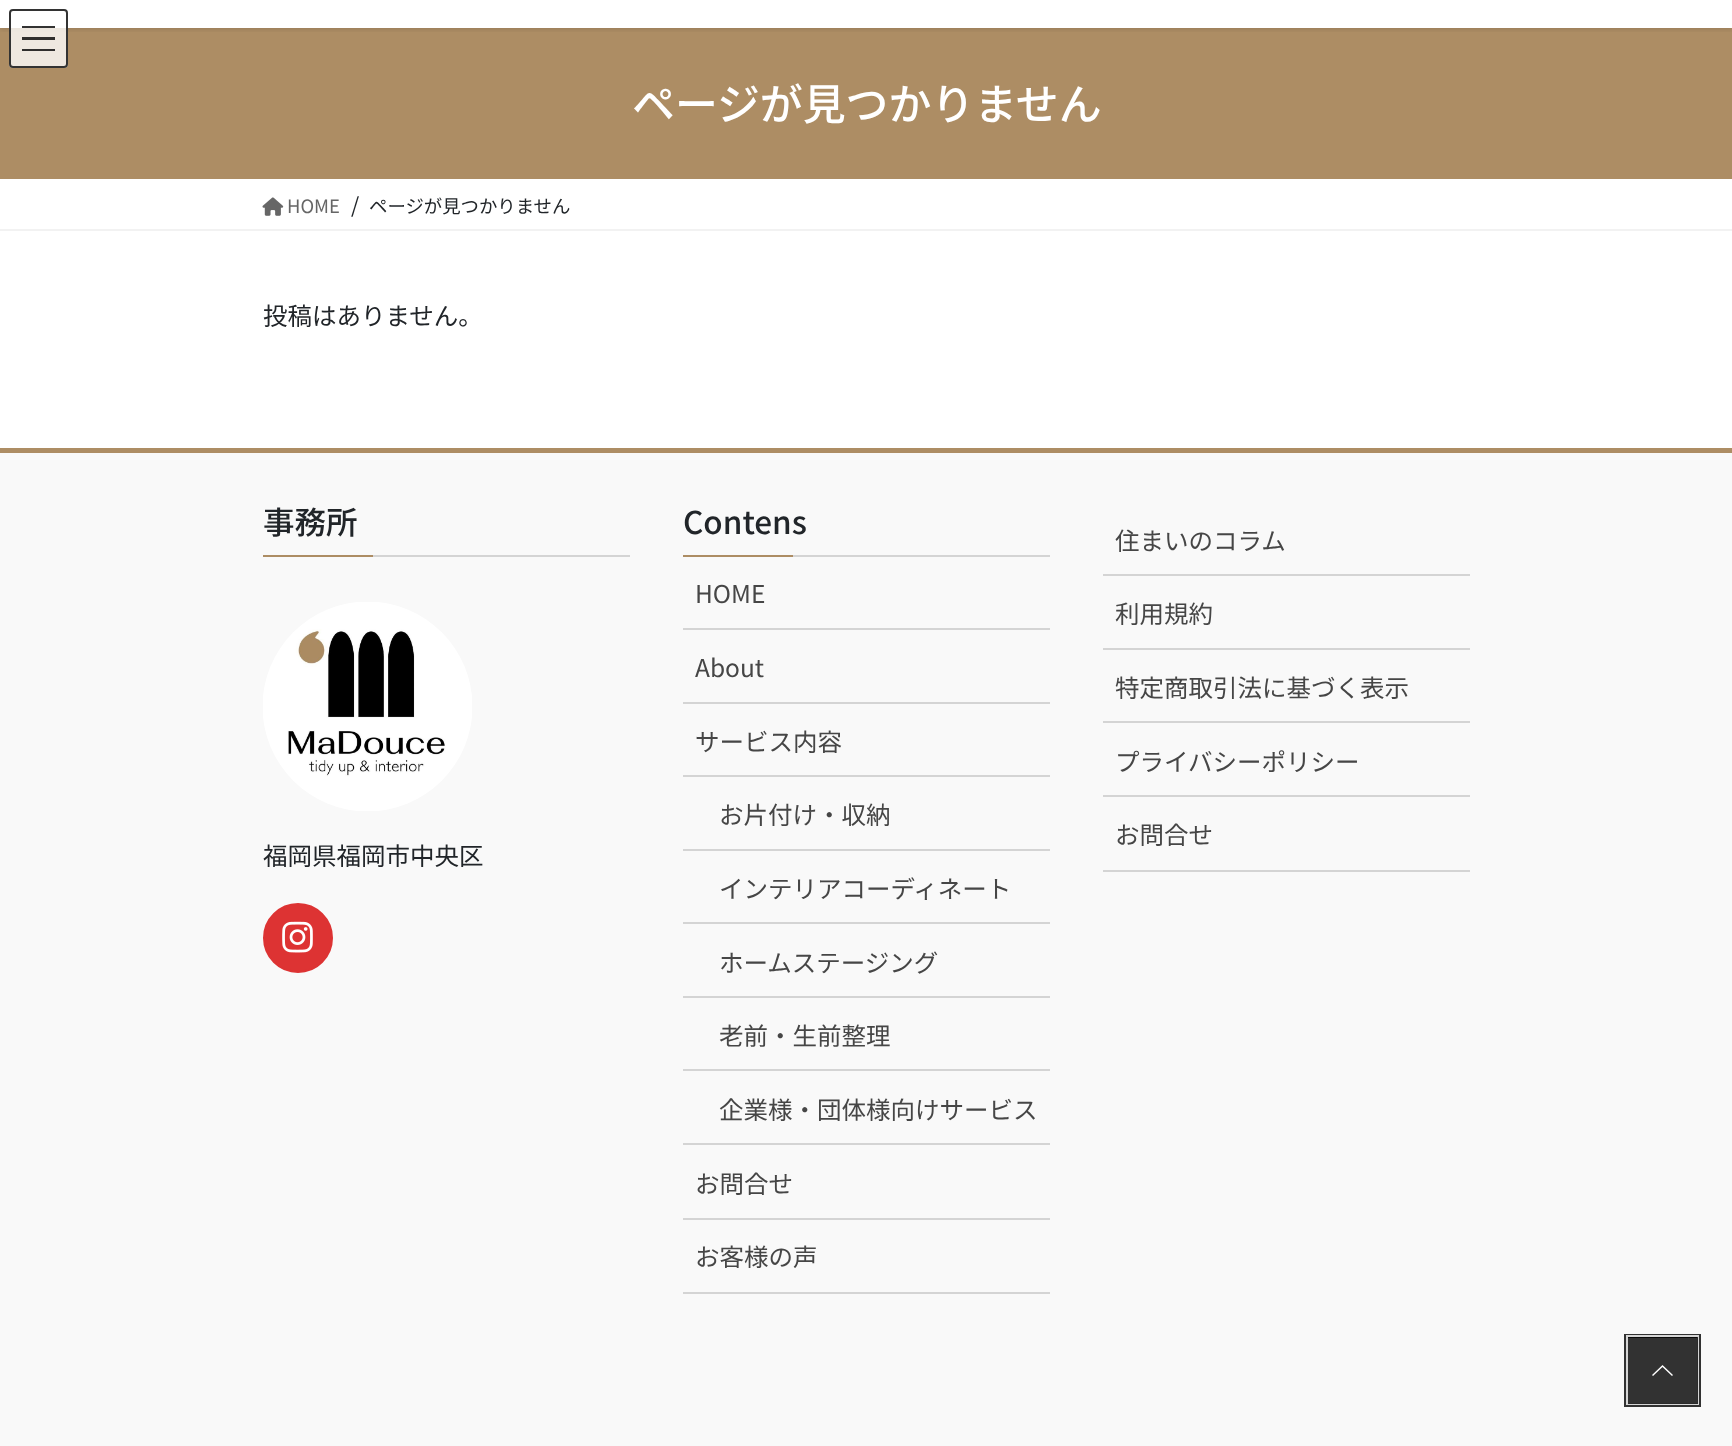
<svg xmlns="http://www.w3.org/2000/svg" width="1732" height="1446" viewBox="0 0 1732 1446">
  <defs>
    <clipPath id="clip1"><rect x="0" y="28" width="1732" height="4"/></clipPath>
    <filter id="blur1" x="-50%" y="-200%" width="200%" height="500%"><feGaussianBlur stdDeviation="2.5"/></filter>
  </defs>
  <rect width="100%" height="100%" fill="#ffffff"/>
  <rect x="0" y="28" width="1732" height="151" fill="#ad8d64"/>
  <g clip-path="url(#clip1)">
    <rect x="0" y="-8" width="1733" height="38" fill="#000000" fill-opacity="0.1" filter="url(#blur1)"/>
  </g>
  <rect x="9" y="9" width="59" height="59" rx="4" fill="#ffffff" fill-opacity="0.8"/>
  <rect x="22" y="26" width="33" height="2" fill="#333333"/>
  <rect x="22" y="37" width="33" height="3" fill="#302e2d"/>
  <rect x="22" y="49" width="33" height="2" fill="#302e2d"/>
  <rect x="10" y="10" width="57" height="57" rx="3" fill="none" stroke="#333333" stroke-width="2"/>
  <text x="632" y="120" font-family="Noto Sans JP" font-size="42.9" font-weight="500" fill="#ffffff">ページが見つかりません</text>
  <rect x="0" y="229" width="1732" height="2" fill="#f2f2f2"/>
  <image x="262" y="197" width="22" height="19" href="img1.png"/>
  <text x="287" y="213" font-family="Noto Sans JP" font-size="18.4" fill="#666666">HOME</text>
  <text x="351" y="213" font-family="Noto Sans JP" font-size="21" fill="#212529">/</text>
  <text x="369" y="213" font-family="Noto Sans JP" font-size="18.4" fill="#212529">ページが見つかりません</text>
  <text x="263" y="325" font-family="Noto Sans JP" font-size="24.5" fill="#212529">投稿はありません。</text>
  <rect x="0" y="453" width="1732" height="993" fill="#f9f9f9"/>
  <rect x="0" y="448" width="1732" height="5" fill="#ad8d64"/>
  <rect x="373" y="555" width="257" height="2" fill="#d4d4d4"/>
  <text x="263" y="534" font-family="Noto Sans JP" font-size="31.5" font-weight="500" fill="#212529">事務所</text>
  <rect x="263" y="555" width="110" height="2" fill="#ad8d64"/>
  <image x="263" y="602" width="209" height="209" href="img2.png"/>
  <text x="263" y="865" font-family="Noto Sans JP" font-size="24.5" fill="#212529">福岡県福岡市中央区</text>
  <circle cx="298" cy="938" r="34" fill="#dd3333" stroke="#dd3333" stroke-width="2"/>
  <image x="282" y="921" width="31" height="32" href="img3.png"/>
  <rect x="793" y="555" width="257" height="2" fill="#d4d4d4"/>
  <text x="683" y="534" font-family="Noto Sans JP" font-size="31.5" font-weight="500" fill="#212529">Contens</text>
  <rect x="683" y="555" width="110" height="2" fill="#ad8d64"/>
  <rect x="683" y="628" width="367" height="2" fill="#d4d4d4"/>
  <text x="695" y="603" font-family="Noto Sans JP" font-size="24.5" fill="#464646">HOME</text>
  <rect x="683" y="702" width="367" height="2" fill="#d4d4d4"/>
  <text x="695" y="677" font-family="Noto Sans JP" font-size="24.5" fill="#464646">About</text>
  <rect x="683" y="775" width="367" height="2" fill="#d4d4d4"/>
  <text x="695" y="751" font-family="Noto Sans JP" font-size="24.5" fill="#464646">サービス内容</text>
  <rect x="683" y="849" width="367" height="2" fill="#d4d4d4"/>
  <text x="719" y="824" font-family="Noto Sans JP" font-size="24.5" fill="#464646">お片付け・収納</text>
  <rect x="683" y="922" width="367" height="2" fill="#d4d4d4"/>
  <text x="719" y="898" font-family="Noto Sans JP" font-size="24.5" fill="#464646">インテリアコーディネート</text>
  <rect x="683" y="996" width="367" height="2" fill="#d4d4d4"/>
  <text x="719" y="972" font-family="Noto Sans JP" font-size="24.5" fill="#464646">ホームステージング</text>
  <rect x="683" y="1069" width="367" height="2" fill="#d4d4d4"/>
  <text x="719" y="1045" font-family="Noto Sans JP" font-size="24.5" fill="#464646">老前・生前整理</text>
  <rect x="683" y="1143" width="367" height="2" fill="#d4d4d4"/>
  <text x="719" y="1119" font-family="Noto Sans JP" font-size="24.5" fill="#464646">企業様・団体様向けサービス</text>
  <rect x="683" y="1218" width="367" height="2" fill="#d4d4d4"/>
  <text x="695" y="1193" font-family="Noto Sans JP" font-size="24.5" fill="#464646">お問合せ</text>
  <rect x="683" y="1292" width="367" height="2" fill="#d4d4d4"/>
  <text x="695" y="1266" font-family="Noto Sans JP" font-size="24.5" fill="#464646">お客様の声</text>
  <rect x="1103" y="574" width="367" height="2" fill="#d4d4d4"/>
  <text x="1115" y="550" font-family="Noto Sans JP" font-size="24.5" fill="#464646">住まいのコラム</text>
  <rect x="1103" y="648" width="367" height="2" fill="#d4d4d4"/>
  <text x="1115" y="623" font-family="Noto Sans JP" font-size="24.5" fill="#464646">利用規約</text>
  <rect x="1103" y="721" width="367" height="2" fill="#d4d4d4"/>
  <text x="1115" y="697" font-family="Noto Sans JP" font-size="24.5" fill="#464646">特定商取引法に基づく表示</text>
  <rect x="1103" y="795" width="367" height="2" fill="#d4d4d4"/>
  <text x="1115" y="771" font-family="Noto Sans JP" font-size="24.5" fill="#464646">プライバシーポリシー</text>
  <rect x="1103" y="870" width="367" height="2" fill="#d4d4d4"/>
  <text x="1115" y="844" font-family="Noto Sans JP" font-size="24.5" fill="#464646">お問合せ</text>
  <rect x="1626" y="1336" width="73" height="69" fill="none" stroke="#323232" stroke-width="4"/>
  <rect x="1627" y="1336" width="71" height="68" fill="none" stroke="#d6d6d6" stroke-width="2"/>
  <rect x="1628" y="1337" width="70" height="67" fill="#000000" fill-opacity="0.8"/>
  <path d="M1673 1375L1672 1376L1662.5 1367L1653 1376L1652 1375L1662.5 1365Z" fill="#ffffff"/>
</svg>
